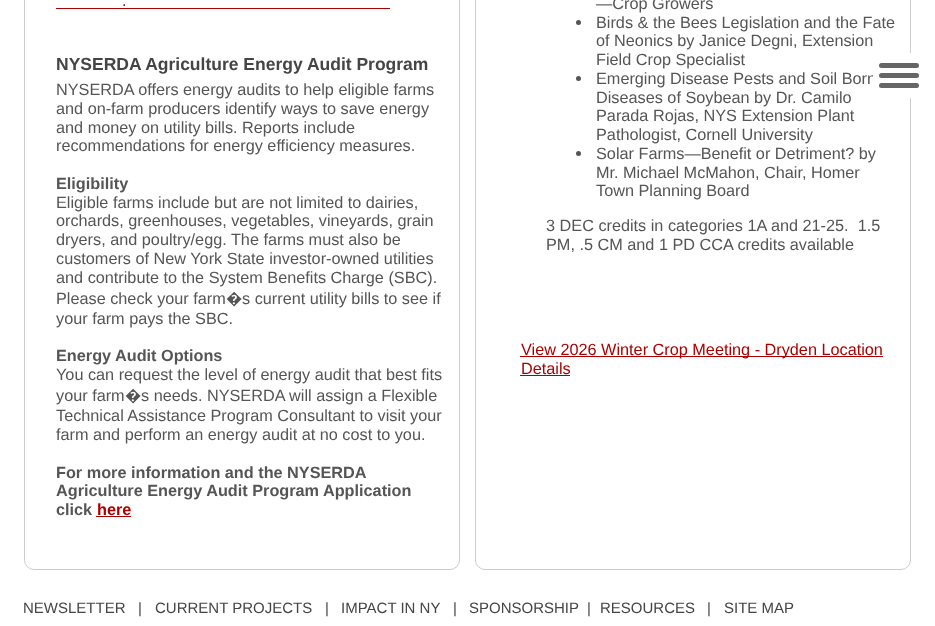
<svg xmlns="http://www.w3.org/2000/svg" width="935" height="626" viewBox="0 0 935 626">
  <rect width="100%" height="100%" fill="#ffffff"/>
  <rect x="24.5" y="-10.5" width="435" height="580" rx="9.5" fill="none" stroke="#cccccc"/>
  <text x="122" y="6" font-family="Liberation Sans" font-size="16.25" fill="#ab0000">.</text>
  <rect x="56" y="8" width="334" height="1" fill="#ab0000"/>
  <text x="56" y="70" font-family="Liberation Sans" font-size="17.5" font-weight="bold" fill="#454545">NYSERDA Agriculture Energy Audit Program</text>
  <text x="56" y="95" font-family="Liberation Sans" font-size="16.25" fill="#555555">NYSERDA offers energy audits to help eligible farms</text>
  <text x="56" y="114" font-family="Liberation Sans" font-size="16.25" fill="#555555">and on-farm producers identify ways to save energy</text>
  <text x="56" y="133" font-family="Liberation Sans" font-size="16.25" fill="#555555">and money on utility bills. Reports include</text>
  <text x="56" y="151" font-family="Liberation Sans" font-size="16.25" fill="#555555">recommendations for energy efficiency measures.</text>
  <text x="56" y="189" font-family="Liberation Sans" font-size="16.25" font-weight="bold" fill="#555555">Eligibility</text>
  <text x="56" y="208" font-family="Liberation Sans" font-size="16.25" fill="#555555">Eligible farms include but are not limited to dairies,</text>
  <text x="56" y="226" font-family="Liberation Sans" font-size="16.25" fill="#555555">orchards, greenhouses, vegetables, vineyards, grain</text>
  <text x="56" y="245" font-family="Liberation Sans" font-size="16.25" fill="#555555">dryers, and poultry/egg. The farms must also be</text>
  <text x="56" y="264" font-family="Liberation Sans" font-size="16.25" fill="#555555">customers of New York State investor-owned utilities</text>
  <text x="56" y="283" font-family="Liberation Sans" font-size="16.25" fill="#555555">and contribute to the System Benefits Charge (SBC).</text>
  <text x="56" y="304" font-family="Liberation Sans" font-size="16.25" fill="#555555">Please check your farm</text>
  <text x="226" y="304" font-family="Noto Sans" font-size="16.25" fill="#555555">�</text>
  <text x="242" y="304" font-family="Liberation Sans" font-size="16.25" fill="#555555">s current utility bills to see if</text>
  <text x="56" y="324" font-family="Liberation Sans" font-size="16.25" fill="#555555">your farm pays the SBC.</text>
  <text x="56" y="361" font-family="Liberation Sans" font-size="16.25" font-weight="bold" fill="#555555">Energy Audit Options</text>
  <text x="56" y="380" font-family="Liberation Sans" font-size="16.25" fill="#555555">You can request the level of energy audit that best fits</text>
  <text x="56" y="401" font-family="Liberation Sans" font-size="16.25" fill="#555555">your farm</text>
  <text x="125" y="401" font-family="Noto Sans" font-size="16.25" fill="#555555">�</text>
  <text x="141" y="401" font-family="Liberation Sans" font-size="16.25" fill="#555555">s needs. NYSERDA will assign a Flexible</text>
  <text x="56" y="421" font-family="Liberation Sans" font-size="16.25" fill="#555555">Technical Assistance Program Consultant to visit your</text>
  <text x="56" y="440" font-family="Liberation Sans" font-size="16.25" fill="#555555">farm and perform an energy audit at no cost to you.</text>
  <text x="56" y="478" font-family="Liberation Sans" font-size="16.25" font-weight="bold" fill="#555555">For more information and the NYSERDA</text>
  <text x="56" y="496" font-family="Liberation Sans" font-size="16.25" font-weight="bold" fill="#555555">Agriculture Energy Audit Program Application</text>
  <text x="56" y="515" font-family="Liberation Sans" font-size="16.25" font-weight="bold" fill="#555555">click</text>
  <text x="97" y="515" font-family="Liberation Sans" font-size="16.25" font-weight="bold" fill="#ab0000">here</text>
  <rect x="96" y="516" width="35" height="1" fill="#ab0000"/>
  <rect x="475.5" y="-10.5" width="435" height="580" rx="9.5" fill="none" stroke="#cccccc"/>
  <text x="596" y="9" font-family="Liberation Sans" font-size="16.25" fill="#555555">—Crop Growers</text>
  <circle cx="578.5" cy="22.5" r="2.5" fill="#555555"/>
  <text x="596" y="28" font-family="Liberation Sans" font-size="16.25" fill="#555555">Birds &amp; the Bees Legislation and the Fate</text>
  <text x="596" y="46" font-family="Liberation Sans" font-size="16.25" fill="#555555">of Neonics by Janice Degni, Extension</text>
  <text x="596" y="65" font-family="Liberation Sans" font-size="16.25" fill="#555555">Field Crop Specialist</text>
  <circle cx="578.5" cy="78.5" r="2.5" fill="#555555"/>
  <text x="596" y="84" font-family="Liberation Sans" font-size="16.25" fill="#555555">Emerging Disease Pests and Soil Born</text>
  <text x="596" y="103" font-family="Liberation Sans" font-size="16.25" fill="#555555">Diseases of Soybean by Dr. Camilo</text>
  <text x="596" y="121" font-family="Liberation Sans" font-size="16.25" fill="#555555">Parada Rojas, NYS Extension Plant</text>
  <text x="596" y="140" font-family="Liberation Sans" font-size="16.25" fill="#555555">Pathologist, Cornell University</text>
  <circle cx="578.5" cy="153.5" r="2.5" fill="#555555"/>
  <text x="596" y="159" font-family="Liberation Sans" font-size="16.25" fill="#555555">Solar Farms—Benefit or Detriment? by</text>
  <text x="596" y="178" font-family="Liberation Sans" font-size="16.25" fill="#555555">Mr. Michael McMahon, Chair, Homer</text>
  <text x="596" y="196" font-family="Liberation Sans" font-size="16.25" fill="#555555">Town Planning Board</text>
  <text x="546" y="231" font-family="Liberation Sans" font-size="16.25" fill="#555555" xml:space="preserve">3 DEC credits in categories 1A and 21-25.  1.5</text>
  <text x="546" y="250" font-family="Liberation Sans" font-size="16.25" fill="#555555">PM, .5 CM and 1 PD CCA credits available</text>
  <rect x="520" y="356" width="363" height="1" fill="#ab0000"/>
  <text x="521" y="355" font-family="Liberation Sans" font-size="16.25" fill="#ab0000">View 2026 Winter Crop Meeting - Dryden Location</text>
  <text x="521" y="374" font-family="Liberation Sans" font-size="16.25" fill="#ab0000">Details</text>
  <rect x="520" y="375" width="50" height="1" fill="#ab0000"/>
  <text x="23" y="613" font-family="Liberation Sans" font-size="15" fill="#454545">NEWSLETTER</text>
  <text x="138" y="613" font-family="Liberation Sans" font-size="15" fill="#454545">|</text>
  <text x="155" y="613" font-family="Liberation Sans" font-size="15" fill="#454545">CURRENT PROJECTS</text>
  <text x="325" y="613" font-family="Liberation Sans" font-size="15" fill="#454545">|</text>
  <text x="341" y="613" font-family="Liberation Sans" font-size="15" fill="#454545">IMPACT IN NY</text>
  <text x="453" y="613" font-family="Liberation Sans" font-size="15" fill="#454545">|</text>
  <text x="469" y="613" font-family="Liberation Sans" font-size="15" fill="#454545">SPONSORSHIP</text>
  <text x="587" y="613" font-family="Liberation Sans" font-size="15" fill="#454545">|</text>
  <text x="600" y="613" font-family="Liberation Sans" font-size="15" fill="#454545">RESOURCES</text>
  <text x="707" y="613" font-family="Liberation Sans" font-size="15" fill="#454545">|</text>
  <text x="724" y="613" font-family="Liberation Sans" font-size="15" fill="#454545">SITE MAP</text>
  <rect x="873" y="53" width="38" height="45" fill="#ffffff"/>
  <rect x="879" y="63" width="40" height="5" rx="2.5" fill="#666666"/>
  <rect x="879" y="73" width="40" height="5" rx="2.5" fill="#666666"/>
  <rect x="879" y="83" width="40" height="5" rx="2.5" fill="#666666"/>
</svg>
